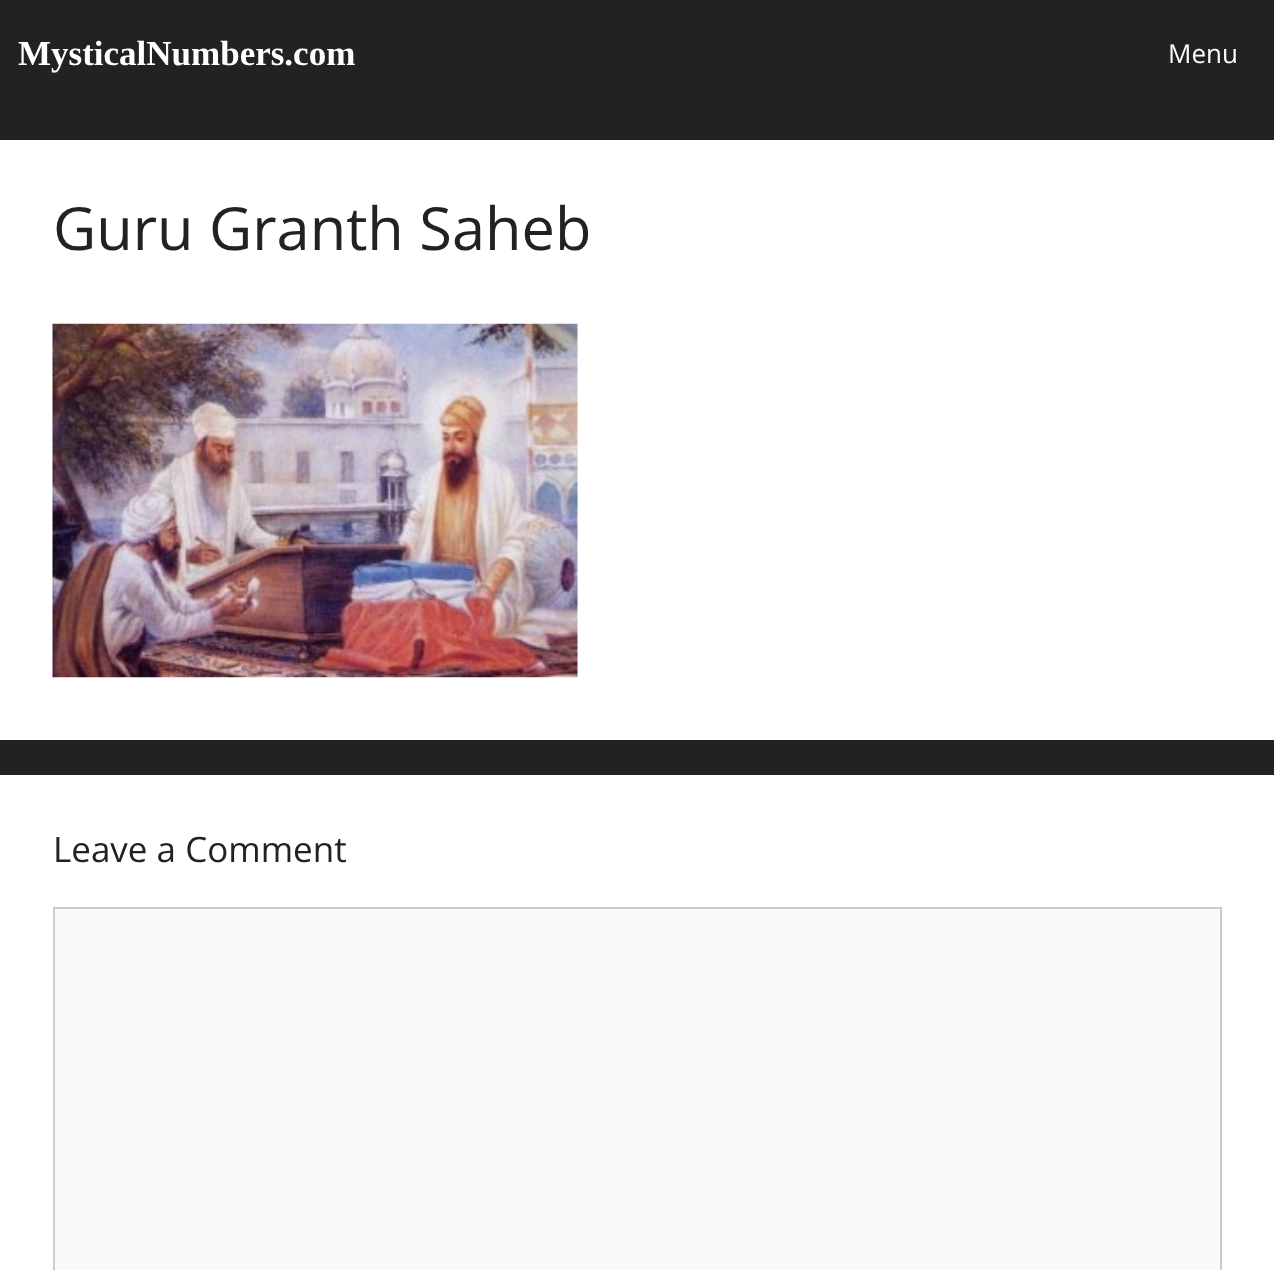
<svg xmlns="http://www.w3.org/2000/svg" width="1274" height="1270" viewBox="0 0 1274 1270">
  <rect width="100%" height="100%" fill="#222222"/>
  <text x="18" y="65" font-family="Liberation Serif" font-size="35" font-weight="bold" fill="#ffffff">MysticalNumbers.com</text>
  <text x="1168" y="63" font-family="Open Sans" font-size="26" fill="#ffffff">Menu</text>
  <rect x="0" y="140" width="1274" height="600" fill="#ffffff"/>
  <text x="53" y="250" font-family="Open Sans" font-size="59.5" fill="#222222">Guru Granth Saheb</text>
  <image x="52" y="323" width="526" height="355" href="img1.png"/>
  <rect x="0" y="775" width="1274" height="495" fill="#ffffff"/>
  <text x="53" y="862" font-family="Open Sans" font-size="35" fill="#222222">Leave a Comment</text>
  <rect x="54" y="908" width="1167" height="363" fill="#fafafa" stroke="#cccccc" stroke-width="2"/>
</svg>
